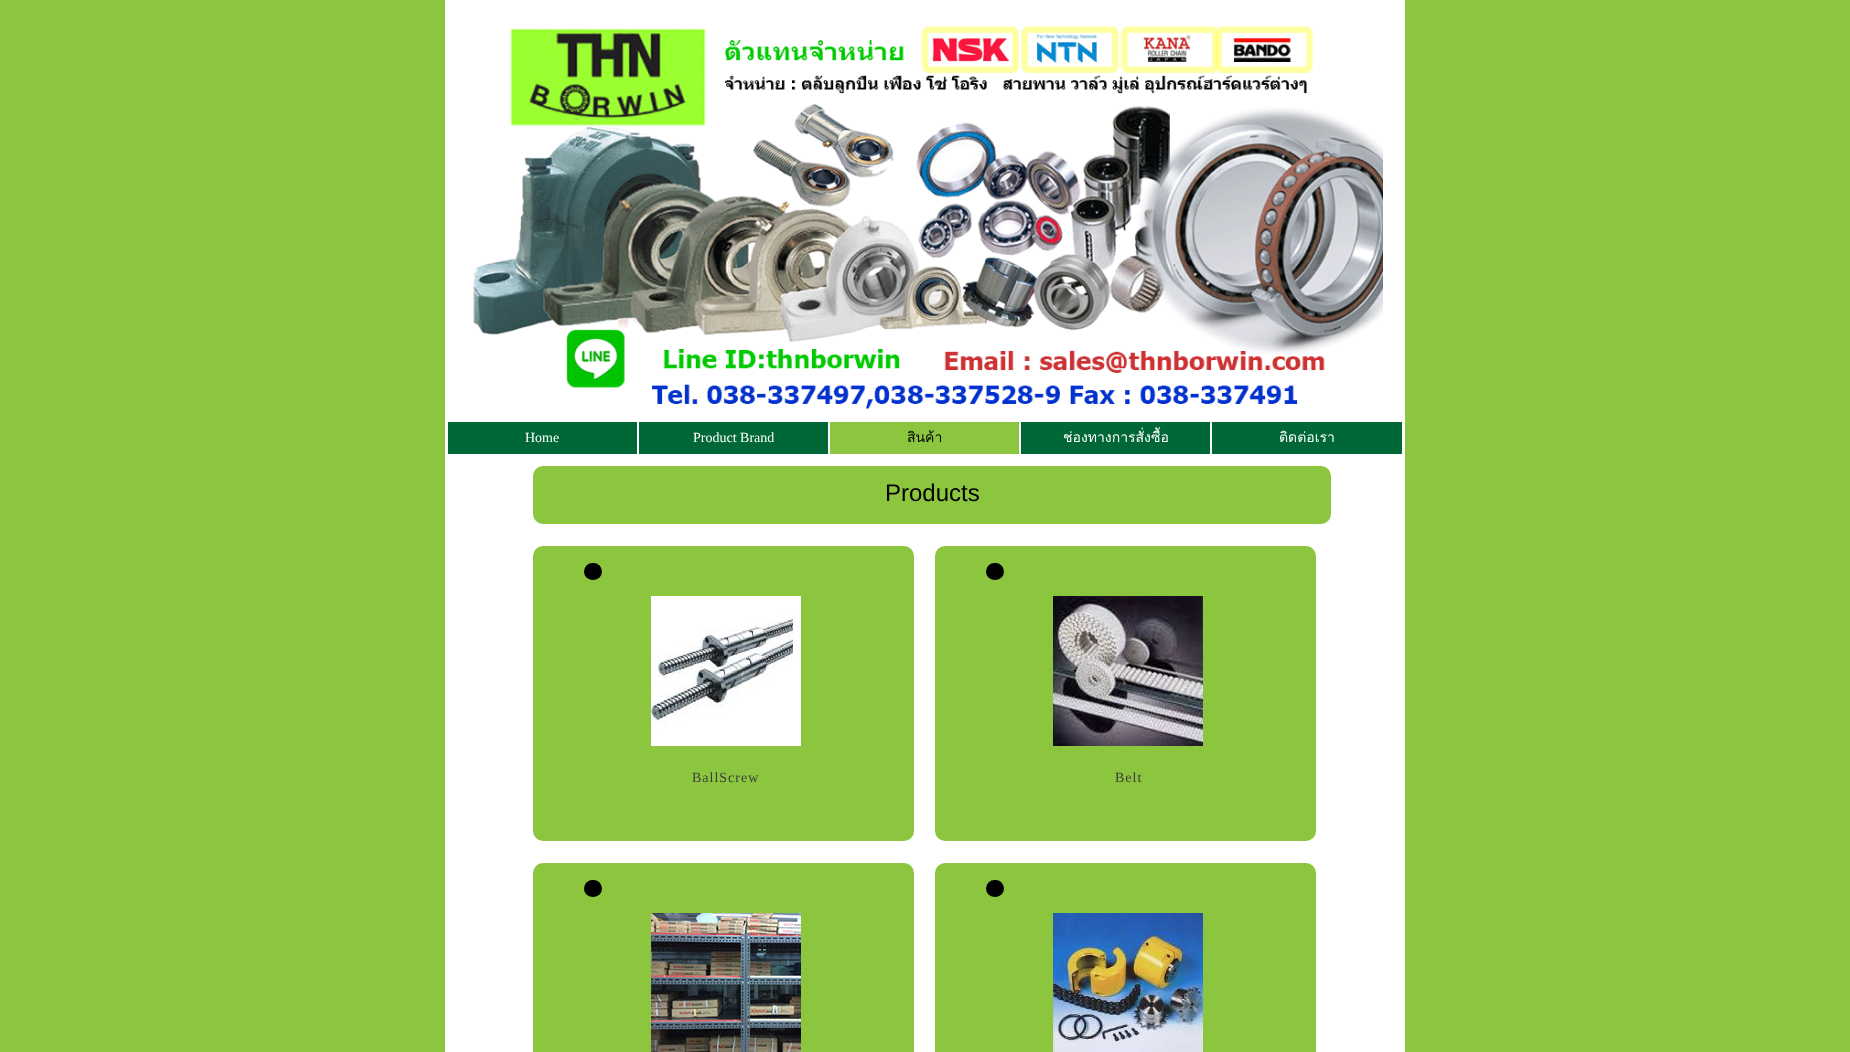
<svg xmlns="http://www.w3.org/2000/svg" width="1850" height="1052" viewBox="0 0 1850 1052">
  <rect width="100%" height="100%" fill="#8cc63f"/>
  <rect x="445" y="0" width="960" height="1052" fill="#ffffff"/>
  <image x="473" y="26" width="910" height="383" href="img1.png"/>
  <rect x="448" y="422" width="189" height="32" fill="#006837"/>
  <text x="525" y="442" font-family="Liberation Serif" font-size="14" fill="#ffffff">Home</text>
  <rect x="639" y="422" width="189" height="32" fill="#006837"/>
  <text x="693" y="442" font-family="Liberation Serif" font-size="14" fill="#ffffff">Product Brand</text>
  <rect x="830" y="422" width="189" height="32" fill="#8cc63f"/>
  <text x="907" y="442" font-family="Loma" font-size="14" fill="#000000">สินค้า</text>
  <rect x="1021" y="422" width="189" height="32" fill="#006837"/>
  <text x="1063" y="442" font-family="Loma" font-size="14" fill="#ffffff">ช่องทางการสั่งซื้อ</text>
  <rect x="1212" y="422" width="190" height="32" fill="#006837"/>
  <text x="1279" y="442" font-family="Loma" font-size="14" fill="#ffffff">ติดต่อเรา</text>
  <rect x="533" y="466" width="798" height="58" rx="10" fill="#8cc63f"/>
  <text x="885" y="501" font-family="Liberation Sans" font-size="24" fill="#000000">Products</text>
  <rect x="533" y="546" width="381" height="295" rx="10" fill="#8cc63f"/>
  <rect x="584" y="563" width="18" height="17" rx="8.5" fill="#000000"/>
  <image x="651" y="596" width="150" height="150" href="img2.png"/>
  <text x="692" y="782" font-family="Liberation Serif" font-size="14" letter-spacing="1" fill="#3c3c3c">BallScrew</text>
  <rect x="935" y="546" width="381" height="295" rx="10" fill="#8cc63f"/>
  <rect x="986" y="563" width="18" height="17" rx="8.5" fill="#000000"/>
  <image x="1053" y="596" width="150" height="150" href="img3.png"/>
  <text x="1115" y="782" font-family="Liberation Serif" font-size="14" letter-spacing="1" fill="#3c3c3c">Belt</text>
  <rect x="533" y="863" width="381" height="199" rx="10" fill="#8cc63f"/>
  <rect x="584" y="880" width="18" height="17" rx="8.5" fill="#000000"/>
  <image x="651" y="913" width="150" height="139" href="img4.png"/>
  <rect x="935" y="863" width="381" height="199" rx="10" fill="#8cc63f"/>
  <rect x="986" y="880" width="18" height="17" rx="8.5" fill="#000000"/>
  <image x="1053" y="913" width="150" height="139" href="img5.png"/>
</svg>
